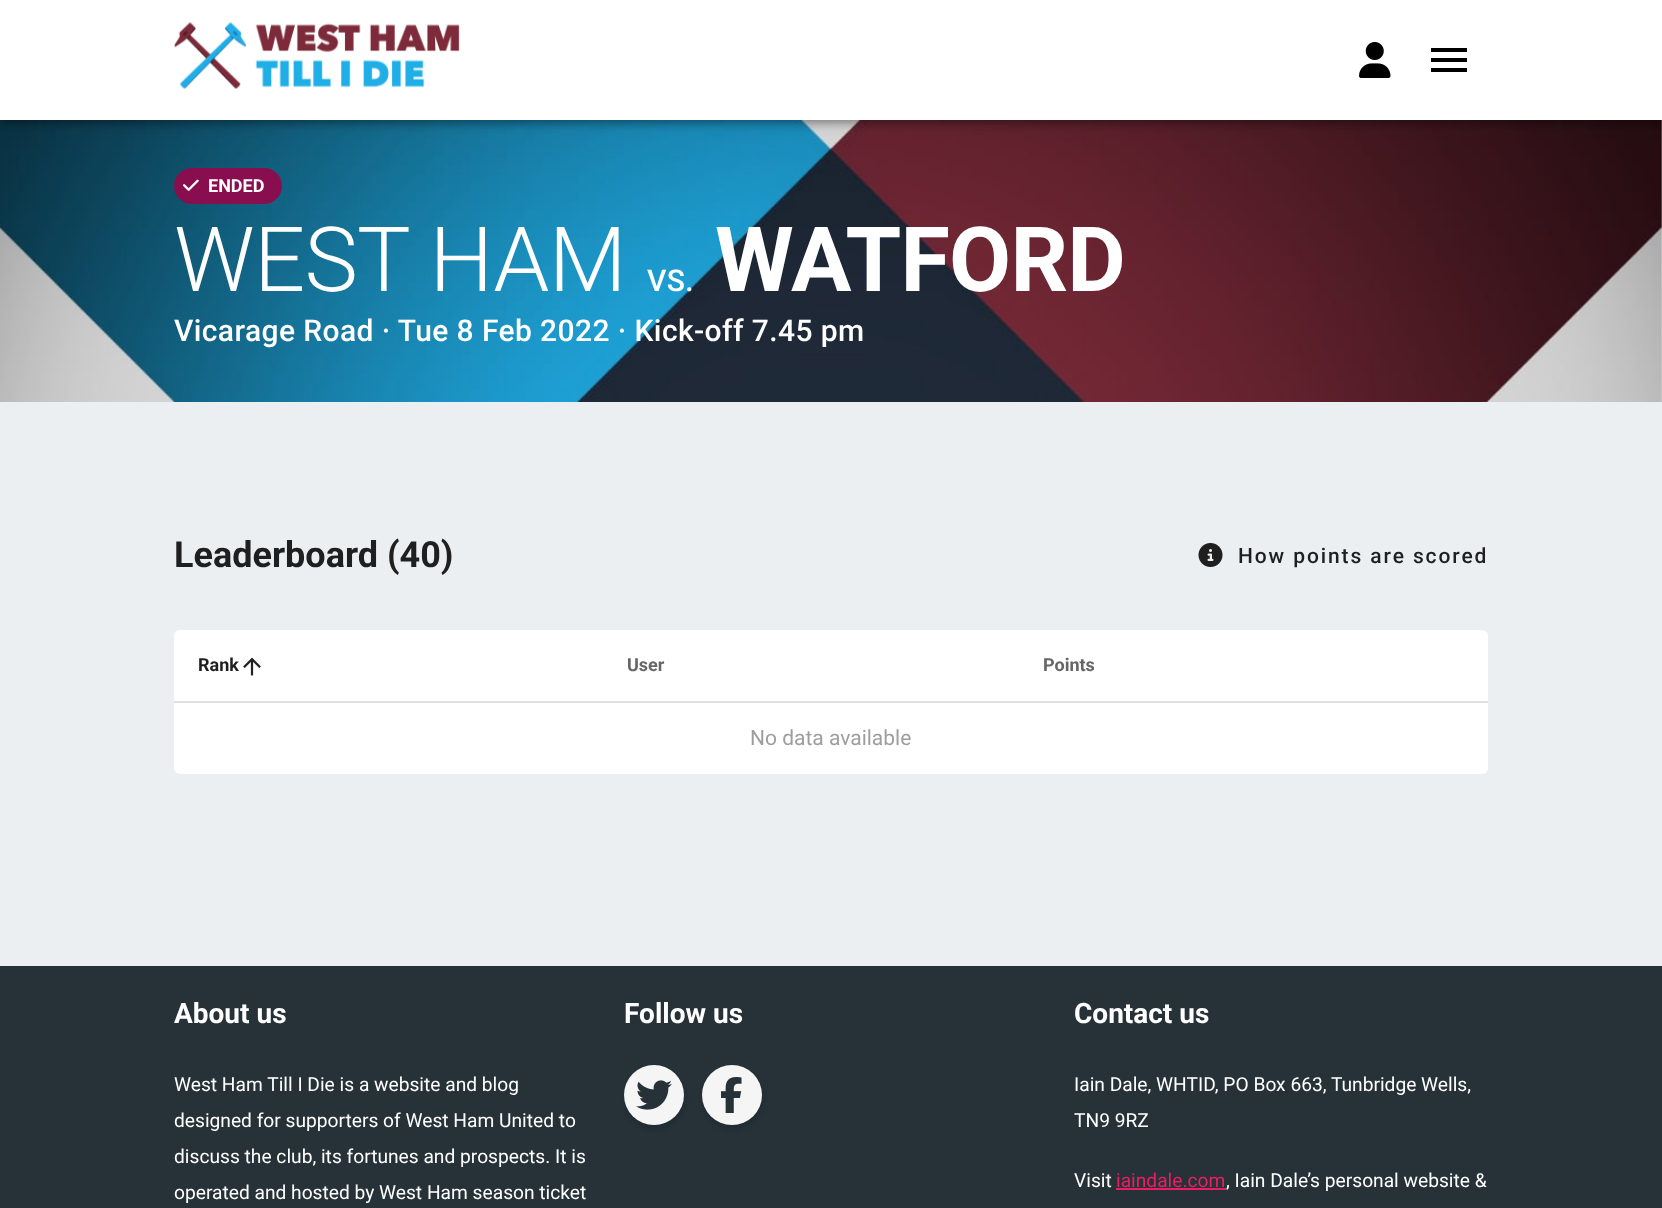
<svg xmlns="http://www.w3.org/2000/svg" width="1662" height="1208" viewBox="0 0 1662 1208">
  <defs>
    <filter id="blur1" x="-50%" y="-200%" width="200%" height="500%"><feGaussianBlur stdDeviation="7.5"/></filter>
    <filter id="blur2" x="-50%" y="-200%" width="200%" height="500%"><feGaussianBlur stdDeviation="4"/></filter>
    <filter id="blur3" x="-50%" y="-200%" width="200%" height="500%"><feGaussianBlur stdDeviation="3"/></filter>
  </defs>
  <rect width="100%" height="100%" fill="#eceff1"/>
  <image x="0" y="120" width="1662" height="282" href="img3.png"/>
  <rect x="0" y="2" width="1662" height="120" fill="#000000" fill-opacity="0.12" filter="url(#blur1)"/>
  <rect x="0" y="6" width="1662" height="120" fill="#000000" fill-opacity="0.14" filter="url(#blur2)"/>
  <rect x="2" y="5" width="1659" height="117" fill="#000000" fill-opacity="0.2" filter="url(#blur3)"/>
  <rect x="0" y="0" width="1662" height="120" fill="#ffffff"/>
  <image x="174" y="22" width="286" height="67" href="img1.png"/>
  <image x="1359" y="42" width="32" height="36" href="img2.png"/>
  <path d="M1431 48H1467V52H1431ZM1431 58H1467V62H1431ZM1431 68H1467V72H1431Z" fill="#000000"/>
  <rect x="174" y="168" width="108" height="36" rx="18" fill="#880e4f"/>
  <image x="183" y="179" width="16" height="12" href="img4.png"/>
  <text x="208" y="192" font-family="Roboto" font-size="18" font-weight="bold" fill="#ffffff">ENDED</text>
  <text x="174" y="291" font-family="Roboto" font-size="90" font-weight="300" letter-spacing="-0.75" fill="#ffffff">WEST HAM</text>
  <text x="647" y="291" font-family="Roboto" font-size="30" font-weight="500" letter-spacing="0.4" fill="#ffffff">VS.</text>
  <text x="715" y="291" font-family="Roboto" font-size="90" font-weight="bold" letter-spacing="-0.75" fill="#ffffff">WATFORD</text>
  <text x="174" y="341" font-family="Roboto" font-size="30" font-weight="500" letter-spacing="0.4" fill="#ffffff">Vicarage Road · Tue 8 Feb 2022 · Kick-off 7.45 pm</text>
  <text x="174" y="567" font-family="Roboto" font-size="36" font-weight="bold" fill="#1f1f1f">Leaderboard (40)</text>
  <image x="1198" y="543" width="25" height="24" href="img5.png"/>
  <text x="1238" y="563" font-family="Roboto" font-size="21" font-weight="500" letter-spacing="1.9" fill="#1f1f1f">How points are scored</text>
  <rect x="174" y="630" width="1314" height="144" rx="6" fill="#ffffff"/>
  <rect x="174" y="701" width="1314" height="2" fill="#e0e0e0"/>
  <text x="198" y="671" font-family="Roboto" font-size="18" font-weight="bold" fill="#1f1f1f">Rank</text>
  <image x="243" y="657" width="18" height="19" href="img6.png"/>
  <text x="627" y="671" font-family="Roboto" font-size="18" font-weight="bold" fill="#666666">User</text>
  <text x="1043" y="671" font-family="Roboto" font-size="18" font-weight="bold" fill="#666666">Points</text>
  <text x="750" y="745" font-family="Roboto" font-size="21" fill="#9e9e9e">No data available</text>
  <rect x="0" y="966" width="1662" height="242" fill="#263238"/>
  <text x="174" y="1023" font-family="Roboto" font-size="28" font-weight="bold" fill="#ffffff">About us</text>
  <text x="174" y="1091" font-family="Roboto" font-size="19.2" fill="#ffffff">West Ham Till I Die is a website and blog</text>
  <text x="174" y="1127" font-family="Roboto" font-size="19.2" fill="#ffffff">designed for supporters of West Ham United to</text>
  <text x="174" y="1163" font-family="Roboto" font-size="19.2" fill="#ffffff">discuss the club, its fortunes and prospects. It is</text>
  <text x="174" y="1199" font-family="Roboto" font-size="19.2" fill="#ffffff">operated and hosted by West Ham season ticket</text>
  <text x="624" y="1023" font-family="Roboto" font-size="28" font-weight="bold" fill="#ffffff">Follow us</text>
  <rect x="626" y="1071" width="57" height="57" rx="28.5" fill="#000000" fill-opacity="0.2" filter="url(#blur2)"/>
  <circle cx="654" cy="1095" r="30" fill="#f5f5f5"/>
  <image x="636" y="1080" width="36" height="30" href="img7.png"/>
  <rect x="704" y="1071" width="57" height="57" rx="28.5" fill="#000000" fill-opacity="0.2" filter="url(#blur2)"/>
  <circle cx="732" cy="1095" r="30" fill="#f5f5f5"/>
  <image x="721" y="1077" width="21" height="36" href="img8.png"/>
  <text x="1074" y="1023" font-family="Roboto" font-size="28" font-weight="bold" fill="#ffffff">Contact us</text>
  <text x="1074" y="1091" font-family="Roboto" font-size="19.2" fill="#ffffff">Iain Dale, WHTID, PO Box 663, Tunbridge Wells,</text>
  <text x="1074" y="1127" font-family="Roboto" font-size="19.2" fill="#ffffff">TN9 9RZ</text>
  <text x="1074" y="1187" font-family="Roboto" font-size="19.2" fill="#ffffff">Visit</text>
  <text x="1116" y="1187" font-family="Roboto" font-size="19.2" fill="#e91e63">iaindale.com</text>
  <text x="1226" y="1187" font-family="Roboto" font-size="19.2" fill="#ffffff">, Iain Dale’s personal website &amp;</text>
  <rect x="1116" y="1188" width="110" height="2" fill="#e91e63"/>
</svg>
